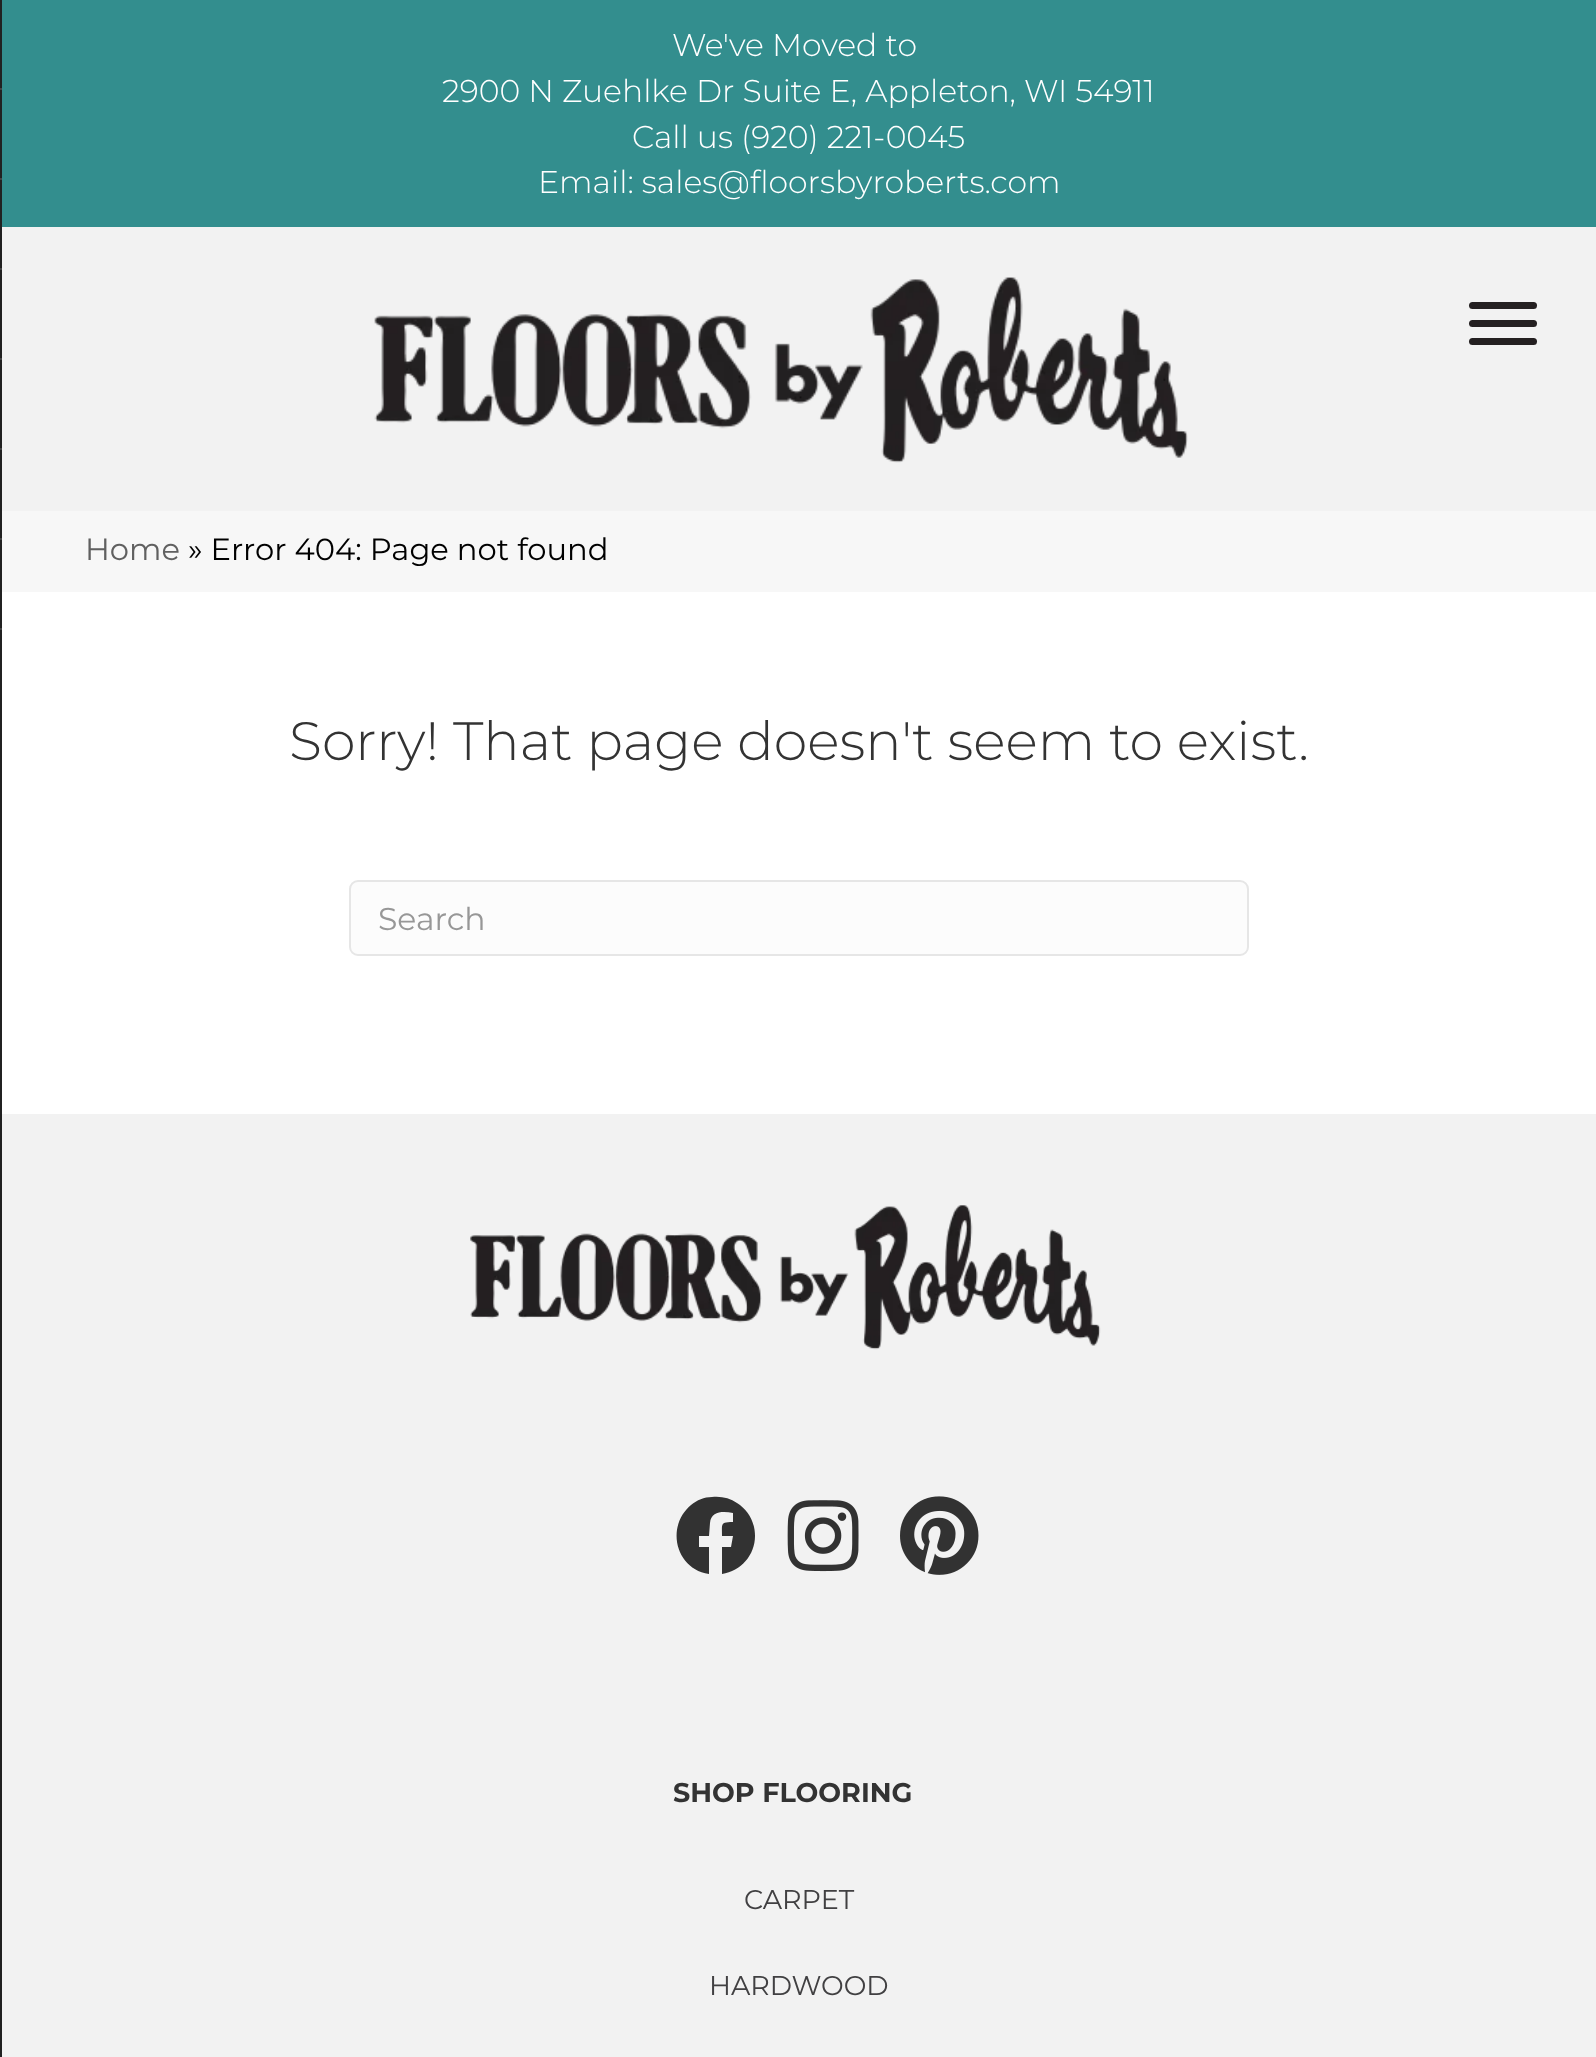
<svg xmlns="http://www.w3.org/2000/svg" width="1596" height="2057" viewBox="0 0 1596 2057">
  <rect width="100%" height="100%" fill="#f2f2f2"/>
  <rect x="0" y="0" width="2" height="2057" fill="#212121"/>
  <rect x="0" y="88" width="2" height="2" fill="#444444"/>
  <rect x="0" y="178" width="2" height="2" fill="#444444"/>
  <rect x="0" y="268" width="2" height="2" fill="#444444"/>
  <rect x="0" y="358" width="2" height="2" fill="#444444"/>
  <rect x="0" y="448" width="2" height="2" fill="#444444"/>
  <rect x="0" y="538" width="2" height="2" fill="#444444"/>
  <rect x="0" y="628" width="2" height="2" fill="#444444"/>
  <rect x="2" y="0" width="1594" height="227" fill="#338e8e"/>
  <text x="672" y="56" font-family="Montserrat" font-size="31.5" font-weight="300" fill="#ffffff">We've Moved to</text>
  <text x="442" y="102" font-family="Montserrat" font-size="31.5" font-weight="300" fill="#ffffff">2900 N Zuehlke Dr Suite E, Appleton, WI 54911</text>
  <text x="632" y="148" font-family="Montserrat" font-size="31.5" font-weight="300" fill="#ffffff">Call us (920) 221-0045</text>
  <text x="538" y="193" font-family="Montserrat" font-size="31.5" font-weight="300" fill="#ffffff">Email: sales@floorsbyroberts.com</text>
  <image x="374" y="277" width="814" height="186" href="img1.png"/>
  <rect x="2" y="592" width="1594" height="522" fill="#ffffff"/>
  <rect x="2" y="511" width="1594" height="81" fill="#f7f7f7"/>
  <text x="85" y="560" font-family="Montserrat" font-size="30.6" fill="#606060">Home</text>
  <text x="188" y="560" font-family="Montserrat" font-size="30.6" fill="#000000">» Error 404: Page not found</text>
  <text x="289" y="760" font-family="Montserrat" font-size="54" font-weight="300" fill="#333333">Sorry! That page doesn't seem to exist.</text>
  <rect x="350" y="881" width="898" height="74" rx="8" fill="#fcfcfc" stroke="#e6e6e6" stroke-width="2"/>
  <text x="378" y="930" font-family="Montserrat" font-size="31.5" fill="#979797">Search</text>
  <image x="470" y="1205" width="631" height="145" href="img2.png"/>
  <path d="M755 1536C755 1555 741 1571 722 1574V1547H731L733 1536H722C722 1524 720 1522 733 1522V1513C723 1511 711 1511 710 1523L709 1536H699V1547H709V1574C676 1569 665 1527 691 1505C697 1500 704 1497 712 1497C721 1496 730 1498 737 1503C748 1510 755 1522 755 1536Z" fill="#323232"/>
  <image x="787" y="1500" width="72" height="72" href="img3.png"/>
  <image x="900" y="1496" width="79" height="79" href="img4.png"/>
  <text x="673" y="1802" font-family="Montserrat" font-size="27" font-weight="bold" fill="#333333">SHOP FLOORING</text>
  <text x="744" y="1909" font-family="Montserrat" font-size="27" fill="#414042">CARPET</text>
  <text x="709" y="1995" font-family="Montserrat" font-size="27" fill="#414042">HARDWOOD</text>
  <rect x="1469" y="320" width="68" height="7" rx="3.5" fill="#242021"/>
  <rect x="1469" y="302" width="68" height="7" rx="3.5" fill="#242021"/>
  <rect x="1469" y="338" width="68" height="7" rx="3.5" fill="#242021"/>
</svg>
